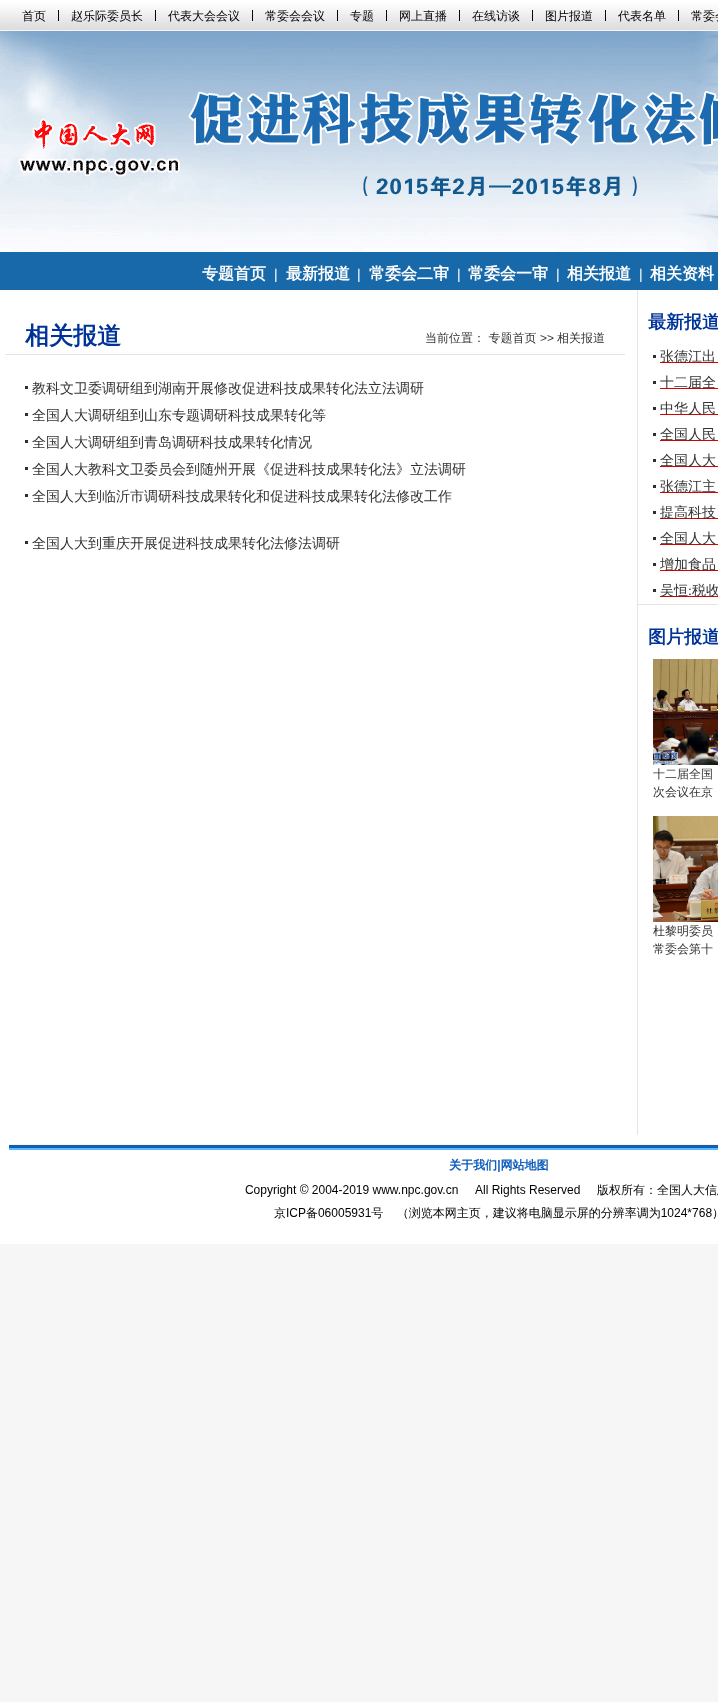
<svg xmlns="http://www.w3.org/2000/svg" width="718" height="1702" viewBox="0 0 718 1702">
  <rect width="100%" height="100%" fill="#f6f6f6"/>
  <image x="0" y="0" width="718" height="30" href="img1.png"/>
  <image x="22" y="9" width="696" height="13" href="img2.png"/>
  <image x="0" y="31" width="718" height="221" href="img3.png"/>
  <rect x="0" y="252" width="718" height="38" fill="#1869aa"/>
  <text x="202" y="279" font-family="WenQuanYi Zen Hei" font-size="16" font-weight="bold" fill="#ffffff">专题首页</text>
  <text x="274" y="279" font-family="Liberation Sans" font-size="14" fill="#ffffff">|</text>
  <text x="286" y="279" font-family="WenQuanYi Zen Hei" font-size="16" font-weight="bold" fill="#ffffff">最新报道</text>
  <text x="357" y="279" font-family="Liberation Sans" font-size="14" fill="#ffffff">|</text>
  <text x="369" y="279" font-family="WenQuanYi Zen Hei" font-size="16" font-weight="bold" fill="#ffffff">常委会二审</text>
  <text x="457" y="279" font-family="Liberation Sans" font-size="14" fill="#ffffff">|</text>
  <text x="468" y="279" font-family="WenQuanYi Zen Hei" font-size="16" font-weight="bold" fill="#ffffff">常委会一审</text>
  <text x="556" y="279" font-family="Liberation Sans" font-size="14" fill="#ffffff">|</text>
  <text x="567" y="279" font-family="WenQuanYi Zen Hei" font-size="16" font-weight="bold" fill="#ffffff">相关报道</text>
  <text x="639" y="279" font-family="Liberation Sans" font-size="14" fill="#ffffff">|</text>
  <text x="650" y="279" font-family="WenQuanYi Zen Hei" font-size="16" font-weight="bold" fill="#ffffff">相关资料</text>
  <rect x="0" y="290" width="718" height="954" fill="#ffffff"/>
  <rect x="5" y="354" width="620" height="1" fill="#e7e3e0"/>
  <text x="25" y="344" font-family="WenQuanYi Zen Hei" font-size="24" font-weight="bold" fill="#003399">相关报道</text>
  <text x="425" y="342" font-family="WenQuanYi Zen Hei" font-size="12" font-weight="500" fill="#333333">当前位置： 专题首页</text>
  <text x="540" y="342" font-family="Liberation Sans" font-size="12" fill="#333333">&gt;&gt;</text>
  <text x="557" y="342" font-family="WenQuanYi Zen Hei" font-size="12" font-weight="500" fill="#333333">相关报道</text>
  <rect x="25" y="386" width="3" height="3" fill="#2e2e2e"/>
  <text x="32" y="393" font-family="WenQuanYi Zen Hei" font-size="14" font-weight="500" fill="#333333">教科文卫委调研组到湖南开展修改促进科技成果转化法立法调研</text>
  <rect x="25" y="413" width="3" height="3" fill="#2e2e2e"/>
  <text x="32" y="420" font-family="WenQuanYi Zen Hei" font-size="14" font-weight="500" fill="#333333">全国人大调研组到山东专题调研科技成果转化等</text>
  <rect x="25" y="440" width="3" height="3" fill="#2e2e2e"/>
  <text x="32" y="447" font-family="WenQuanYi Zen Hei" font-size="14" font-weight="500" fill="#333333">全国人大调研组到青岛调研科技成果转化情况</text>
  <rect x="25" y="467" width="3" height="3" fill="#2e2e2e"/>
  <text x="32" y="474" font-family="WenQuanYi Zen Hei" font-size="14" font-weight="500" fill="#333333">全国人大教科文卫委员会到随州开展《促进科技成果转化法》立法调研</text>
  <rect x="25" y="494" width="3" height="3" fill="#2e2e2e"/>
  <text x="32" y="501" font-family="WenQuanYi Zen Hei" font-size="14" font-weight="500" fill="#333333">全国人大到临沂市调研科技成果转化和促进科技成果转化法修改工作</text>
  <rect x="25" y="541" width="3" height="3" fill="#2e2e2e"/>
  <text x="32" y="548" font-family="WenQuanYi Zen Hei" font-size="14" font-weight="500" fill="#333333">全国人大到重庆开展促进科技成果转化法修法调研</text>
  <rect x="637" y="604" width="81" height="1" fill="#e7e3e0"/>
  <rect x="637" y="290" width="1" height="845" fill="#e7e3e0"/>
  <text x="648" y="328" font-family="WenQuanYi Zen Hei" font-size="18" font-weight="bold" fill="#003399">最新报道</text>
  <rect x="653" y="355" width="3" height="3" fill="#2e2e2e"/>
  <rect x="660" y="362" width="58" height="1" fill="#d90002"/>
  <text x="660" y="361" font-family="WenQuanYi Zen Hei" font-size="14" font-weight="500" fill="#333333">张德江出</text>
  <rect x="653" y="381" width="3" height="3" fill="#2e2e2e"/>
  <rect x="660" y="388" width="58" height="1" fill="#d90002"/>
  <text x="660" y="387" font-family="WenQuanYi Zen Hei" font-size="14" font-weight="500" fill="#333333">十二届全</text>
  <rect x="653" y="407" width="3" height="3" fill="#2e2e2e"/>
  <rect x="660" y="414" width="58" height="1" fill="#d90002"/>
  <text x="660" y="413" font-family="WenQuanYi Zen Hei" font-size="14" font-weight="500" fill="#333333">中华人民</text>
  <rect x="653" y="433" width="3" height="3" fill="#2e2e2e"/>
  <rect x="660" y="440" width="58" height="1" fill="#d90002"/>
  <text x="660" y="439" font-family="WenQuanYi Zen Hei" font-size="14" font-weight="500" fill="#333333">全国人民</text>
  <rect x="653" y="459" width="3" height="3" fill="#2e2e2e"/>
  <rect x="660" y="466" width="58" height="1" fill="#d90002"/>
  <text x="660" y="465" font-family="WenQuanYi Zen Hei" font-size="14" font-weight="500" fill="#333333">全国人大</text>
  <rect x="653" y="485" width="3" height="3" fill="#2e2e2e"/>
  <rect x="660" y="492" width="58" height="1" fill="#d90002"/>
  <text x="660" y="491" font-family="WenQuanYi Zen Hei" font-size="14" font-weight="500" fill="#333333">张德江主</text>
  <rect x="653" y="511" width="3" height="3" fill="#2e2e2e"/>
  <rect x="660" y="518" width="58" height="1" fill="#d90002"/>
  <text x="660" y="517" font-family="WenQuanYi Zen Hei" font-size="14" font-weight="500" fill="#333333">提高科技</text>
  <rect x="653" y="537" width="3" height="3" fill="#2e2e2e"/>
  <rect x="660" y="544" width="58" height="1" fill="#d90002"/>
  <text x="660" y="543" font-family="WenQuanYi Zen Hei" font-size="14" font-weight="500" fill="#333333">全国人大</text>
  <rect x="653" y="563" width="3" height="3" fill="#2e2e2e"/>
  <rect x="660" y="570" width="58" height="1" fill="#d90002"/>
  <text x="660" y="569" font-family="WenQuanYi Zen Hei" font-size="14" font-weight="500" fill="#333333">增加食品</text>
  <rect x="653" y="589" width="3" height="3" fill="#2e2e2e"/>
  <rect x="660" y="596" width="58" height="1" fill="#d90002"/>
  <text x="660" y="595" font-family="WenQuanYi Zen Hei" font-size="14" font-weight="500" fill="#333333">吴恒</text>
  <text x="688" y="595" font-family="Liberation Serif" font-size="14" fill="#333333">:</text>
  <text x="692" y="595" font-family="WenQuanYi Zen Hei" font-size="14" font-weight="500" fill="#333333">税收</text>
  <text x="648" y="643" font-family="WenQuanYi Zen Hei" font-size="18" font-weight="bold" fill="#003399">图片报道</text>
  <image x="653" y="659" width="65" height="106" href="img4.png"/>
  <text x="653" y="778" font-family="WenQuanYi Zen Hei" font-size="12" font-weight="500" fill="#333333">十二届全国</text>
  <text x="653" y="796" font-family="WenQuanYi Zen Hei" font-size="12" font-weight="500" fill="#333333">次会议在京</text>
  <image x="653" y="816" width="65" height="106" href="img5.png"/>
  <text x="653" y="935" font-family="WenQuanYi Zen Hei" font-size="12" font-weight="500" fill="#333333">杜黎明委员</text>
  <text x="653" y="953" font-family="WenQuanYi Zen Hei" font-size="12" font-weight="500" fill="#333333">常委会第十</text>
  <image x="9" y="1144" width="709" height="75" href="img6.png"/>
</svg>
